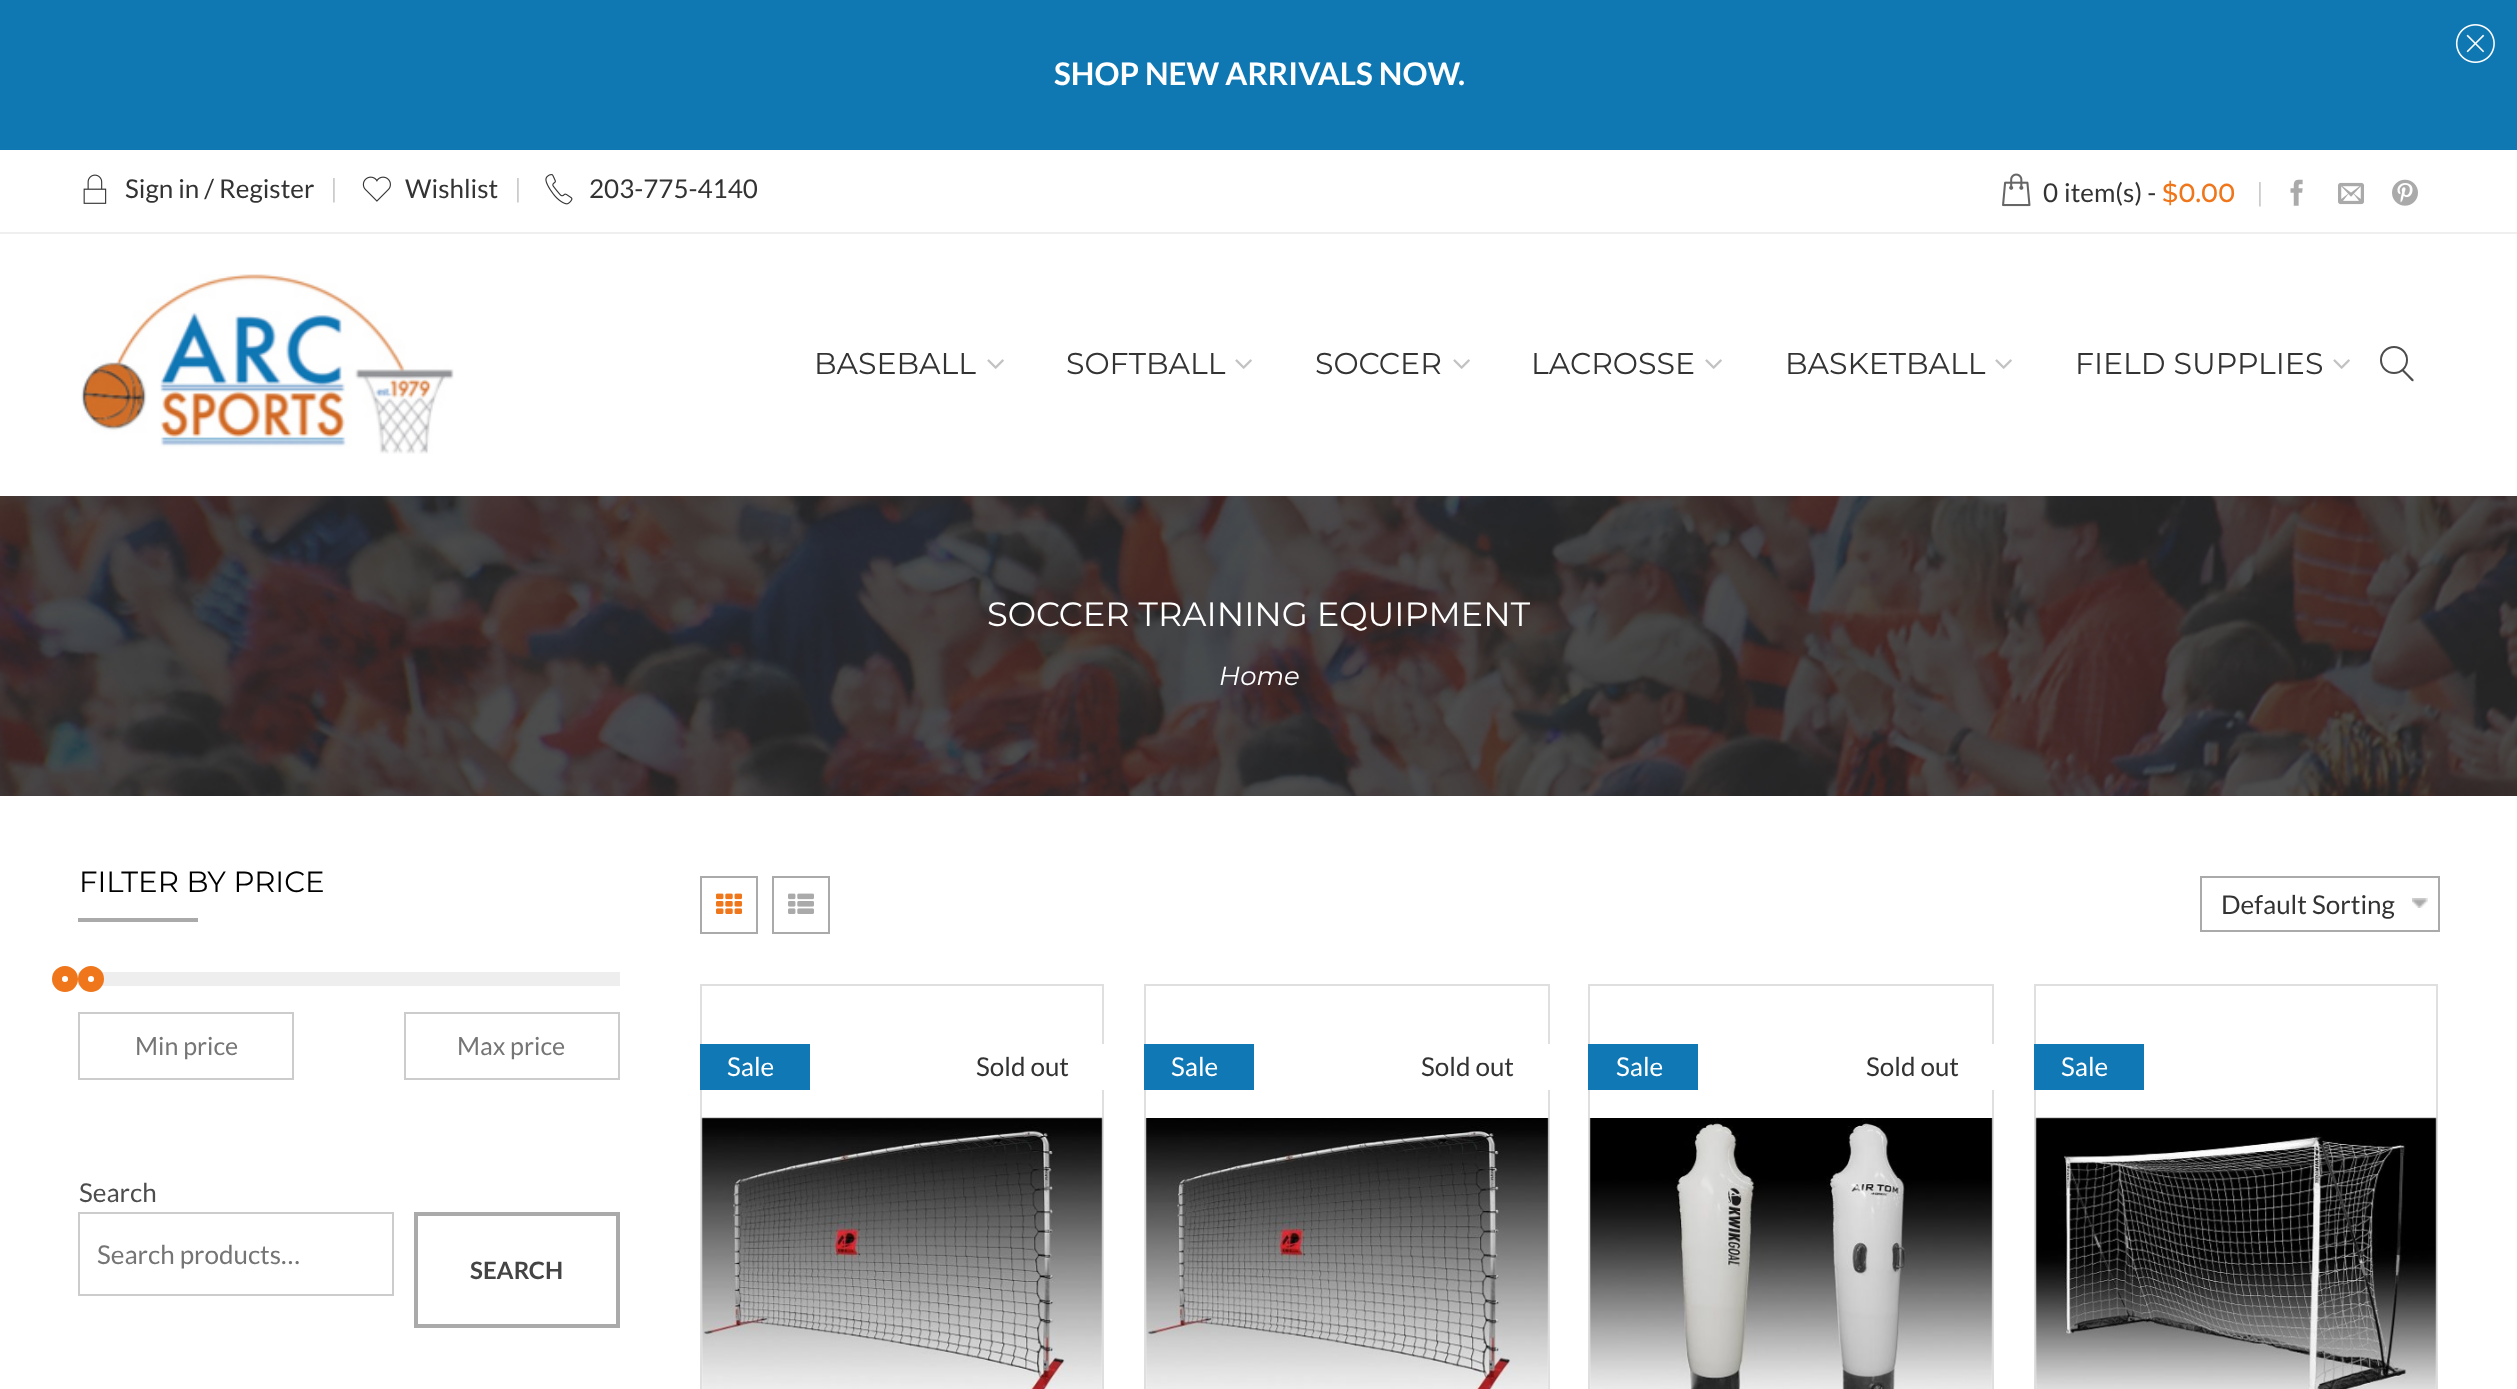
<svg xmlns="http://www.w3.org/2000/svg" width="2517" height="1389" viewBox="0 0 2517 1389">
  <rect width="100%" height="100%" fill="#ffffff"/>
  <rect x="0" y="0" width="2517" height="150" fill="#0f78b2"/>
  <image x="2455" y="24" width="40" height="39" href="img1.png"/>
  <text x="1054" y="85" font-family="Lato" font-size="31.25" font-weight="bold" fill="#ffffff">SHOP NEW ARRIVALS NOW.</text>
  <rect x="0" y="232" width="2517" height="2" fill="#efefef"/>
  <image x="83" y="174" width="24" height="30" href="img2.png"/>
  <text x="125" y="198" font-family="Lato" font-size="26" fill="#333333">Sign in / Register</text>
  <text x="330" y="198" font-family="Lato" font-size="26" fill="#cccccc">|</text>
  <image x="362" y="176" width="29" height="26" href="img3.png"/>
  <text x="405" y="198" font-family="Lato" font-size="26" fill="#333333">Wishlist</text>
  <text x="514" y="198" font-family="Lato" font-size="26" fill="#cccccc">|</text>
  <image x="545" y="174" width="28" height="31" href="img4.png"/>
  <text x="589" y="198" font-family="Lato" font-size="26" fill="#333333">203-775-4140</text>
  <image x="2002" y="173" width="29" height="34" href="img5.png"/>
  <text x="2043" y="202" font-family="Lato" font-size="26" fill="#333333">0</text>
  <text x="2064" y="202" font-family="Lato" font-size="26" fill="#333333">item(s) -</text>
  <text x="2162" y="202" font-family="Montserrat" font-size="26" font-weight="500" fill="#ef761a">$0.00</text>
  <text x="2256" y="202" font-family="Lato" font-size="26" fill="#cccccc">|</text>
  <image x="2290" y="179" width="13" height="27" href="img6.png"/>
  <image x="2338" y="182" width="26" height="23" href="img7.png"/>
  <image x="2392" y="179" width="26" height="27" href="img8.png"/>
  <image x="81" y="274" width="373" height="180" href="img9.png"/>
  <text x="814" y="374" font-family="Montserrat" font-size="30" fill="#333333">BASEBALL</text>
  <image x="987" y="359" width="17" height="10" href="img10.png"/>
  <text x="1066" y="374" font-family="Montserrat" font-size="30" fill="#333333">SOFTBALL</text>
  <image x="1235" y="359" width="17" height="10" href="img10.png"/>
  <text x="1315" y="374" font-family="Montserrat" font-size="30" fill="#333333">SOCCER</text>
  <image x="1453" y="359" width="17" height="10" href="img10.png"/>
  <text x="1531" y="374" font-family="Montserrat" font-size="30" fill="#333333">LACROSSE</text>
  <image x="1705" y="359" width="17" height="10" href="img10.png"/>
  <text x="1785" y="374" font-family="Montserrat" font-size="30" fill="#333333">BASKETBALL</text>
  <image x="1995" y="359" width="17" height="10" href="img10.png"/>
  <text x="2075" y="374" font-family="Montserrat" font-size="30" fill="#333333">FIELD SUPPLIES</text>
  <image x="2333" y="359" width="17" height="10" href="img10.png"/>
  <path d="M2386.5 352.5L2413.5 379.5V381C2412.5 382.5 2410 379 2407.5 376.5L2385 354C2384.5 353 2385.5 352 2386.5 352.5Z" fill="#4d4d4d"/>
  <circle cx="2394" cy="360" r="13" fill="#ffffff" stroke="#4d4d4d" stroke-width="2"/>
  <image x="0" y="496" width="2517" height="300" href="img11.png"/>
  <text x="987" y="626" font-family="Montserrat" font-size="33.75" fill="#ffffff">SOCCER TRAINING EQUIPMENT</text>
  <text x="1219" y="685" font-family="Montserrat" font-size="26" font-style="italic" fill="#ffffff">Home</text>
  <text x="79" y="892" font-family="Montserrat" font-size="29.25" fill="#000000">FILTER BY PRICE</text>
  <rect x="78" y="918" width="120" height="4" fill="#aaaaaa"/>
  <rect x="78" y="972" width="542" height="14" fill="#eeeeee"/>
  <circle cx="65" cy="979" r="8" fill="none" stroke="#ef761a" stroke-width="10"/>
  <circle cx="91" cy="979" r="8" fill="#ffffff" stroke="#ef761a" stroke-width="10"/>
  <rect x="79" y="1013" width="214" height="66" fill="none" stroke="#cccccc" stroke-width="2"/>
  <text x="135" y="1055" font-family="Lato" font-size="25" fill="#757575">Min price</text>
  <rect x="405" y="1013" width="214" height="66" fill="none" stroke="#cccccc" stroke-width="2"/>
  <text x="457" y="1055" font-family="Lato" font-size="25" fill="#757575">Max price</text>
  <text x="79" y="1202" font-family="Lato" font-size="26" fill="#4d4d4d">Search</text>
  <rect x="79" y="1213" width="314" height="82" fill="none" stroke="#cccccc" stroke-width="2"/>
  <text x="97" y="1264" font-family="Lato" font-size="26" fill="#757575">Search products…</text>
  <rect x="416" y="1214" width="202" height="112" fill="none" stroke="#aaaaaa" stroke-width="4"/>
  <text x="470" y="1279" font-family="Lato" font-size="24" font-weight="bold" fill="#444444">SEARCH</text>
  <rect x="701" y="877" width="56" height="56" fill="none" stroke="#aaaaaa" stroke-width="2"/>
  <image x="716" y="893" width="26" height="21" href="img12.png"/>
  <rect x="773" y="877" width="56" height="56" fill="none" stroke="#aaaaaa" stroke-width="2"/>
  <image x="788" y="893" width="26" height="21" href="img13.png"/>
  <image x="2412" y="898" width="16" height="10" href="img14.png"/>
  <rect x="2201" y="877" width="238" height="54" fill="none" stroke="#aaaaaa" stroke-width="2"/>
  <text x="2221" y="914" font-family="Lato" font-size="26" fill="#333333">Default Sorting</text>
  <rect x="701" y="985" width="402" height="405" fill="none" stroke="#dfdfdf" stroke-width="2"/>
  <image x="701" y="1117" width="402" height="272" href="img15.png"/>
  <rect x="700" y="1044" width="110" height="46" fill="#0f78b5"/>
  <text x="727" y="1076" font-family="Lato" font-size="26" fill="#ffffff">Sale</text>
  <rect x="1102" y="1044" width="2" height="46" fill="#ffffff"/>
  <text x="976" y="1076" font-family="Lato" font-size="26" fill="#333333">Sold out</text>
  <rect x="1145" y="985" width="404" height="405" fill="none" stroke="#dfdfdf" stroke-width="2"/>
  <image x="1145" y="1118" width="404" height="271" href="img16.png"/>
  <rect x="1144" y="1044" width="110" height="46" fill="#0f78b5"/>
  <text x="1171" y="1076" font-family="Lato" font-size="26" fill="#ffffff">Sale</text>
  <rect x="1548" y="1044" width="2" height="46" fill="#ffffff"/>
  <text x="1421" y="1076" font-family="Lato" font-size="26" fill="#333333">Sold out</text>
  <rect x="1589" y="985" width="404" height="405" fill="none" stroke="#dfdfdf" stroke-width="2"/>
  <image x="1589" y="1118" width="404" height="271" href="img17.png"/>
  <rect x="1588" y="1044" width="110" height="46" fill="#0f78b5"/>
  <text x="1616" y="1076" font-family="Lato" font-size="26" fill="#ffffff">Sale</text>
  <rect x="1992" y="1044" width="2" height="46" fill="#ffffff"/>
  <text x="1866" y="1076" font-family="Lato" font-size="26" fill="#333333">Sold out</text>
  <rect x="2035" y="985" width="402" height="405" fill="none" stroke="#dfdfdf" stroke-width="2"/>
  <image x="2035" y="1117" width="402" height="272" href="img18.png"/>
  <rect x="2034" y="1044" width="110" height="46" fill="#0f78b5"/>
  <text x="2061" y="1076" font-family="Lato" font-size="26" fill="#ffffff">Sale</text>
</svg>
